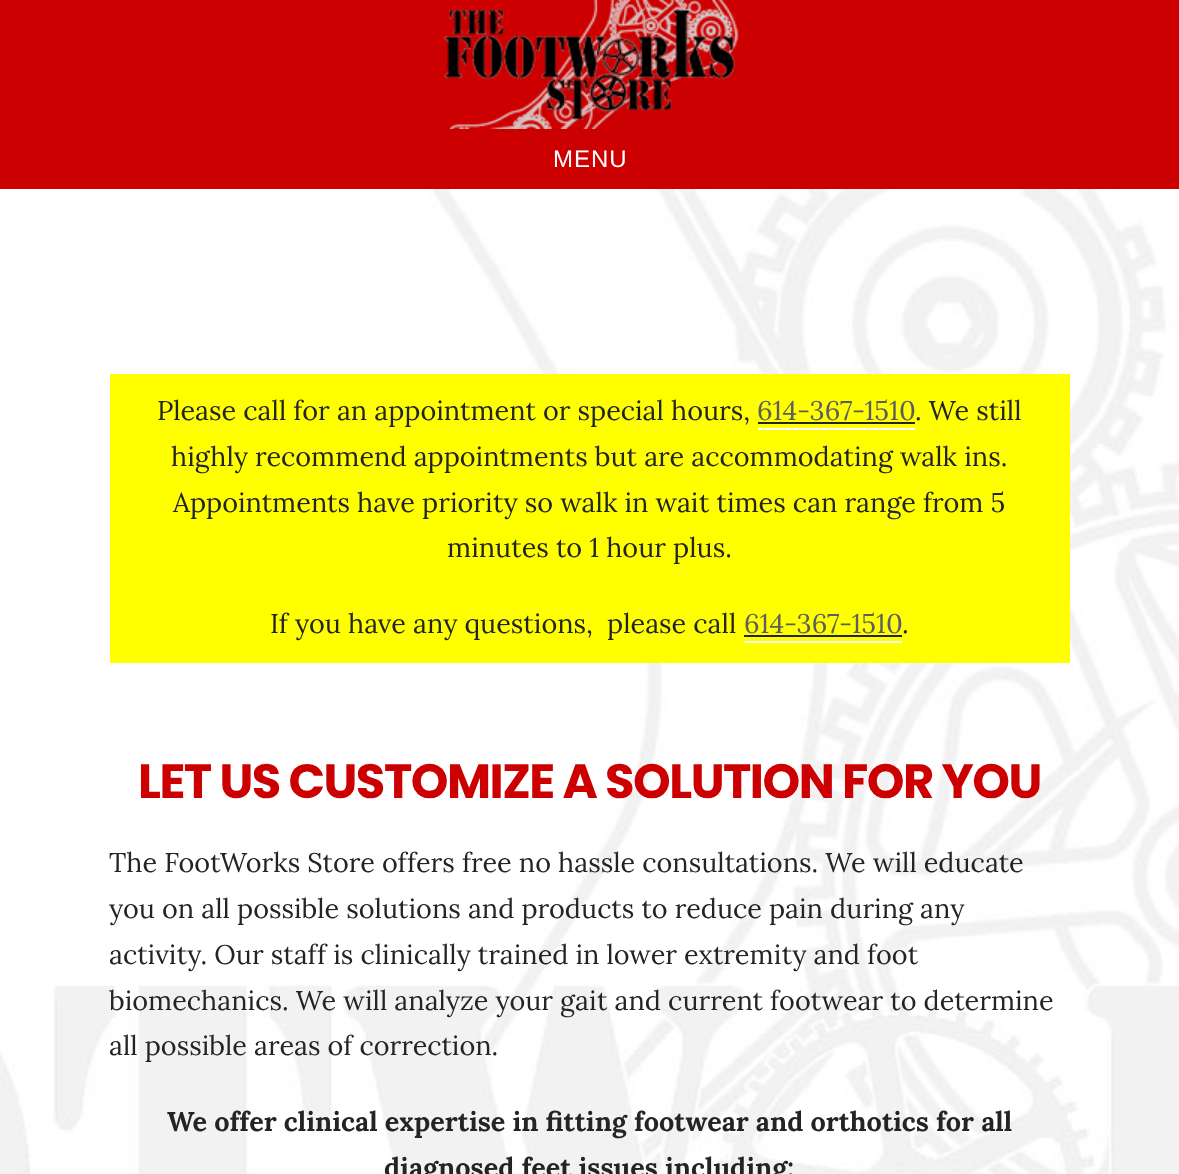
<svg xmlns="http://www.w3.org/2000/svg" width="1179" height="1174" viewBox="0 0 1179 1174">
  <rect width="100%" height="100%" fill="#cc0000"/>
  <image x="443" y="0" width="296" height="129" href="img1.png"/>
  <text x="553" y="167" font-family="Liberation Sans" font-size="24" letter-spacing="1" fill="#ffffff">MENU</text>
  <image x="0" y="189" width="1179" height="985" href="img2.png"/>
  <rect x="110" y="374" width="960" height="289" fill="#ffff00"/>
  <text x="157" y="420" font-family="Lora" font-size="27" fill="#232525">Please call for an appointment or special hours,</text>
  <text x="757" y="420" font-family="Lora" font-size="27" fill="#5b5e5e">614-367-1510</text>
  <rect x="758" y="428" width="157" height="2" fill="#ffffff"/>
  <rect x="758" y="422" width="157" height="2" fill="#232525"/>
  <text x="915" y="420" font-family="Lora" font-size="27" fill="#232525">. We still</text>
  <text x="171" y="466" font-family="Lora" font-size="27" fill="#232525">highly recommend appointments but are accommodating walk ins.</text>
  <text x="173" y="512" font-family="Lora" font-size="27" fill="#232525">Appointments have priority so walk in wait times can range from 5</text>
  <text x="447" y="557" font-family="Lora" font-size="27" fill="#232525">minutes to 1 hour plus.</text>
  <text x="270" y="633" font-family="Lora" font-size="27" fill="#232525" xml:space="preserve">If you have any questions,  please call</text>
  <text x="744" y="633" font-family="Lora" font-size="27" fill="#5b5e5e">614-367-1510</text>
  <rect x="744" y="641" width="158" height="2" fill="#ffffff"/>
  <rect x="744" y="635" width="158" height="2" fill="#232525"/>
  <text x="902" y="633" font-family="Lora" font-size="27" fill="#232525">.</text>
  <text x="138" y="798" font-family="Poppins" font-size="48" font-weight="bold" letter-spacing="-1.5" fill="#cc0000">LET US CUSTOMIZE A SOLUTION FOR YOU</text>
  <text x="109" y="872" font-family="Lora" font-size="27" fill="#232525">The FootWorks Store offers free no hassle consultations. We will educate</text>
  <text x="109" y="918" font-family="Lora" font-size="27" fill="#232525">you on all possible solutions and products to reduce pain during any</text>
  <text x="109" y="964" font-family="Lora" font-size="27" fill="#232525">activity. Our staff is clinically trained in lower extremity and foot</text>
  <text x="109" y="1010" font-family="Lora" font-size="27" fill="#232525">biomechanics. We will analyze your gait and current footwear to determine</text>
  <text x="109" y="1055" font-family="Lora" font-size="27" fill="#232525">all possible areas of correction.</text>
  <text x="167" y="1131" font-family="Lora" font-size="27" font-weight="bold" fill="#232525">We offer clinical expertise in fitting footwear and orthotics for all</text>
  <text x="384" y="1177" font-family="Lora" font-size="27" font-weight="bold" fill="#232525">diagnosed feet issues including:</text>
</svg>
